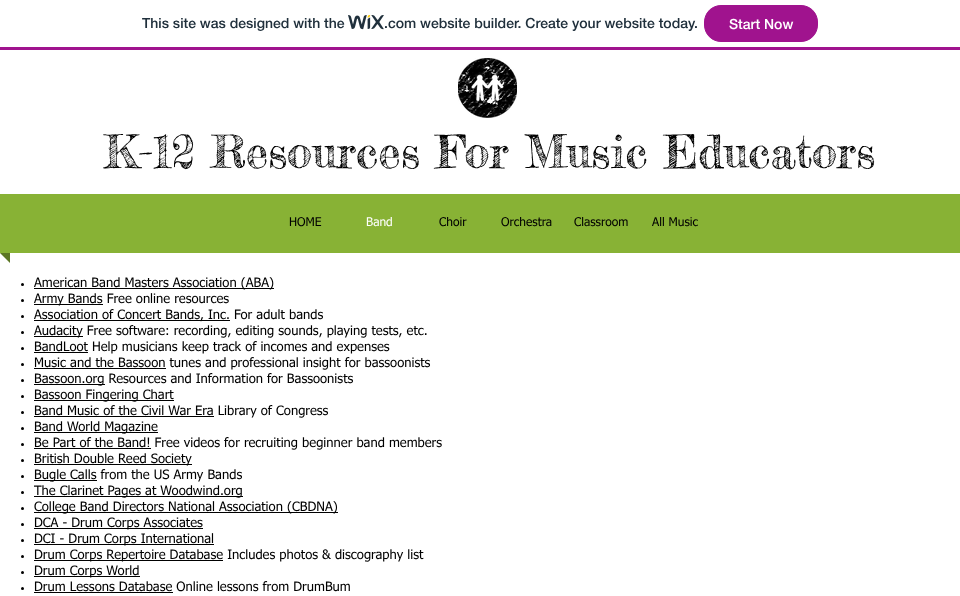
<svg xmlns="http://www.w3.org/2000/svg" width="960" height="596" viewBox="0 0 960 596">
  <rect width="100%" height="100%" fill="#ffffff"/>
  <rect x="0" y="47" width="960" height="3" fill="#a0138e"/>
  <text x="142" y="28" font-family="'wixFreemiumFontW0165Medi'" font-size="14" font-weight="500" fill="#20303c">This site was designed with the</text>
  <image x="348" y="15" width="36" height="15" href="img1.png"/>
  <text x="384" y="28" font-family="'wixFreemiumFontW0165Medi'" font-size="14" font-weight="500" fill="#20303c">.com website builder. Create your website today.</text>
  <rect x="704.5" y="5.5" width="113" height="36" rx="16.5" fill="#a0138e" stroke="#a0138e"/>
  <text x="729" y="29" font-family="'wixFreemiumFontW0165Medi'" font-size="14" font-weight="500" fill="#ffffff">Start Now</text>
  <image x="458" y="58" width="59" height="60" href="img2.png"/>
  <text x="104" y="168" font-family="Fredericka the Great" font-size="45" fill="#000000">K-12 Resources For Music Educators</text>
  <rect x="0" y="194" width="960" height="59" fill="#88b235"/>
  <text x="289" y="226" font-family="tahoma" font-size="12" fill="#000000">HOME</text>
  <text x="366" y="226" font-family="tahoma" font-size="12" fill="#ffffff">Band</text>
  <text x="439" y="226" font-family="tahoma" font-size="12" fill="#000000">Choir</text>
  <text x="501" y="226" font-family="tahoma" font-size="12" fill="#000000">Orchestra</text>
  <text x="574" y="226" font-family="tahoma" font-size="12" fill="#000000">Classroom</text>
  <text x="652" y="226" font-family="tahoma" font-size="12" fill="#000000">All Music</text>
  <path d="M0 253H10V263Z" fill="#5b7623"/>
  <circle cx="22.5" cy="284.5" r="1.5" fill="#000000"/>
  <rect x="34" y="288" width="240" height="1" fill="#000000"/>
  <text x="34" y="287" font-family="tahoma" font-size="13" fill="#000000">American Band Masters Association (ABA)</text>
  <circle cx="22.5" cy="300.5" r="1.5" fill="#000000"/>
  <rect x="34" y="304" width="69" height="1" fill="#000000"/>
  <text x="34" y="303" font-family="tahoma" font-size="13" fill="#000000">Army Bands Free online resources</text>
  <circle cx="22.5" cy="316.5" r="1.5" fill="#000000"/>
  <rect x="34" y="320" width="196" height="1" fill="#000000"/>
  <text x="34" y="319" font-family="tahoma" font-size="13" fill="#000000">Association of Concert Bands, Inc. For adult bands</text>
  <circle cx="22.5" cy="332.5" r="1.5" fill="#000000"/>
  <rect x="34" y="336" width="49" height="1" fill="#000000"/>
  <text x="34" y="335" font-family="tahoma" font-size="13" fill="#000000">Audacity Free software: recording, editing sounds, playing tests, etc.</text>
  <circle cx="22.5" cy="348.5" r="1.5" fill="#000000"/>
  <rect x="34" y="352" width="54" height="1" fill="#000000"/>
  <text x="34" y="351" font-family="tahoma" font-size="13" fill="#000000">BandLoot Help musicians keep track of incomes and expenses</text>
  <circle cx="22.5" cy="364.5" r="1.5" fill="#000000"/>
  <rect x="34" y="368" width="132" height="1" fill="#000000"/>
  <text x="34" y="367" font-family="tahoma" font-size="13" fill="#000000">Music and the Bassoon tunes and professional insight for bassoonists</text>
  <circle cx="22.5" cy="380.5" r="1.5" fill="#000000"/>
  <rect x="34" y="384" width="71" height="1" fill="#000000"/>
  <text x="34" y="383" font-family="tahoma" font-size="13" fill="#000000">Bassoon.org Resources and Information for Bassoonists</text>
  <circle cx="22.5" cy="396.5" r="1.5" fill="#000000"/>
  <rect x="34" y="400" width="140" height="1" fill="#000000"/>
  <text x="34" y="399" font-family="tahoma" font-size="13" fill="#000000">Bassoon Fingering Chart</text>
  <circle cx="22.5" cy="412.5" r="1.5" fill="#000000"/>
  <rect x="34" y="416" width="180" height="1" fill="#000000"/>
  <text x="34" y="415" font-family="tahoma" font-size="13" fill="#000000">Band Music of the Civil War Era Library of Congress</text>
  <circle cx="22.5" cy="428.5" r="1.5" fill="#000000"/>
  <rect x="34" y="432" width="124" height="1" fill="#000000"/>
  <text x="34" y="431" font-family="tahoma" font-size="13" fill="#000000">Band World Magazine</text>
  <circle cx="22.5" cy="444.5" r="1.5" fill="#000000"/>
  <rect x="34" y="448" width="117" height="1" fill="#000000"/>
  <text x="34" y="447" font-family="tahoma" font-size="13" fill="#000000">Be Part of the Band! Free videos for recruiting beginner band members</text>
  <circle cx="22.5" cy="460.5" r="1.5" fill="#000000"/>
  <rect x="34" y="464" width="158" height="1" fill="#000000"/>
  <text x="34" y="463" font-family="tahoma" font-size="13" fill="#000000">British Double Reed Society</text>
  <circle cx="22.5" cy="476.5" r="1.5" fill="#000000"/>
  <rect x="34" y="480" width="63" height="1" fill="#000000"/>
  <text x="34" y="479" font-family="tahoma" font-size="13" fill="#000000">Bugle Calls from the US Army Bands</text>
  <circle cx="22.5" cy="492.5" r="1.5" fill="#000000"/>
  <rect x="34" y="496" width="209" height="1" fill="#000000"/>
  <text x="34" y="495" font-family="tahoma" font-size="13" fill="#000000">The Clarinet Pages at Woodwind.org</text>
  <circle cx="22.5" cy="508.5" r="1.5" fill="#000000"/>
  <rect x="34" y="512" width="304" height="1" fill="#000000"/>
  <text x="34" y="511" font-family="tahoma" font-size="13" fill="#000000">College Band Directors National Association (CBDNA)</text>
  <circle cx="22.5" cy="524.5" r="1.5" fill="#000000"/>
  <rect x="34" y="528" width="169" height="1" fill="#000000"/>
  <text x="34" y="527" font-family="tahoma" font-size="13" fill="#000000">DCA - Drum Corps Associates</text>
  <circle cx="22.5" cy="540.5" r="1.5" fill="#000000"/>
  <rect x="34" y="544" width="180" height="1" fill="#000000"/>
  <text x="34" y="543" font-family="tahoma" font-size="13" fill="#000000">DCI - Drum Corps International</text>
  <circle cx="22.5" cy="556.5" r="1.5" fill="#000000"/>
  <rect x="34" y="560" width="189" height="1" fill="#000000"/>
  <text x="34" y="559" font-family="tahoma" font-size="13" fill="#000000">Drum Corps Repertoire Database Includes photos &amp; discography list</text>
  <circle cx="22.5" cy="572.5" r="1.5" fill="#000000"/>
  <rect x="34" y="576" width="106" height="1" fill="#000000"/>
  <text x="34" y="575" font-family="tahoma" font-size="13" fill="#000000">Drum Corps World</text>
  <circle cx="22.5" cy="588.5" r="1.5" fill="#000000"/>
  <text x="34" y="591" font-family="tahoma" font-size="13" fill="#000000">Drum Lessons Database Online lessons from DrumBum</text>
  <rect x="34" y="592" width="139" height="1" fill="#000000"/>
</svg>
